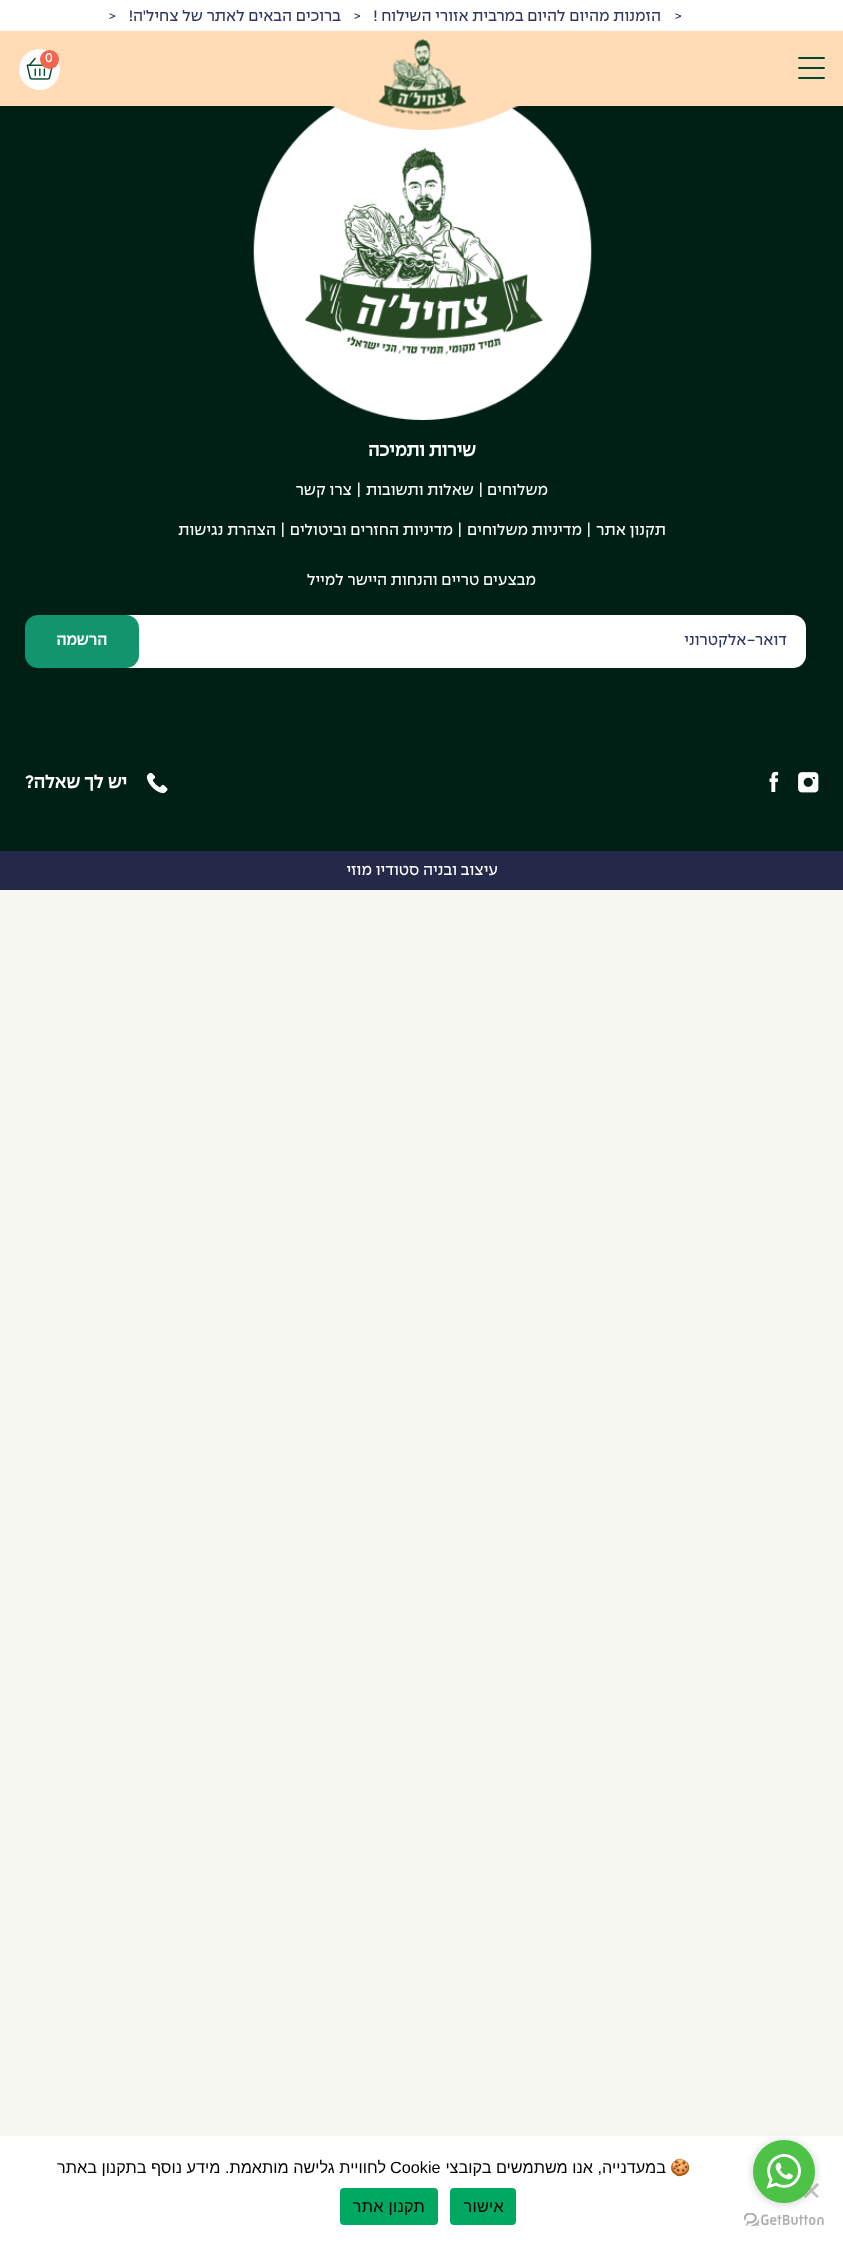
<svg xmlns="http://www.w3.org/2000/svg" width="843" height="2243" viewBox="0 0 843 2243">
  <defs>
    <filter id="blur1" x="-50%" y="-200%" width="200%" height="500%"><feGaussianBlur stdDeviation="4.5"/></filter>
  </defs>
  <rect width="100%" height="100%" fill="#f7f7f1"/>
  <rect x="0" y="0" width="843" height="31" fill="#ffffff"/>
  <text x="674" y="21" font-family="'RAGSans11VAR'" font-size="17.5" fill="#313760">&gt;</text>
  <text x="661" y="21" font-family="'RAGSans11VAR'" font-size="17.5" direction="rtl" fill="#313760">הזמנות מהיום להיום במרבית אזורי השילוח !</text>
  <text x="353" y="21" font-family="'RAGSans11VAR'" font-size="17.5" fill="#313760">&gt;</text>
  <text x="341" y="21" font-family="'RAGSans11VAR'" font-size="17.5" direction="rtl" fill="#313760">ברוכים הבאים לאתר של צחיל'ה!</text>
  <text x="108" y="21" font-family="'RAGSans11VAR'" font-size="17.5" fill="#313760">&gt;</text>
  <rect x="0" y="31" width="843" height="75" fill="#ffdbb6"/>
  <path d="M799 68H824M799 78H824M799 58H824" fill="none" stroke="#00482b" stroke-width="1.9" stroke-linecap="round"/>
  <rect x="0" y="106" width="843" height="745" fill="#002015"/>
  <image x="253" y="106" width="339" height="314" href="img4.png"/>
  <image x="253" y="73" width="336" height="57" href="img2.png"/>
  <image x="378" y="38" width="89" height="77" href="img1.png"/>
  <circle cx="39.5" cy="69.5" r="20.5" fill="#ffffff"/>
  <image x="26" y="57" width="27" height="23" href="img3.png"/>
  <circle cx="49.5" cy="59.5" r="9.5" fill="#f2664f"/>
  <text x="45" y="62" font-family="'RAGSans11VAR'" font-size="15" fill="#ffffff">0</text>
  <text x="476" y="456" font-family="'RAGSans11VAR'" font-size="20" font-weight="bold" direction="rtl" fill="#ffffff">שירות ותמיכה</text>
  <text x="548" y="495" font-family="'RAGSans11VAR'" font-size="17.5" direction="rtl" fill="#ffffff">משלוחים</text>
  <text x="478" y="495" font-family="'RAGSans11VAR'" font-size="20" fill="#ffffff">|</text>
  <text x="474" y="495" font-family="'RAGSans11VAR'" font-size="17.5" direction="rtl" fill="#ffffff">שאלות ותשובות</text>
  <text x="356" y="495" font-family="'RAGSans11VAR'" font-size="20" fill="#ffffff">|</text>
  <text x="352" y="495" font-family="'RAGSans11VAR'" font-size="17.5" direction="rtl" fill="#ffffff">צרו קשר</text>
  <text x="666" y="535" font-family="'RAGSans11VAR'" font-size="17.5" direction="rtl" fill="#ffffff">תקנון אתר</text>
  <text x="586" y="535" font-family="'RAGSans11VAR'" font-size="20" fill="#ffffff">|</text>
  <text x="582" y="535" font-family="'RAGSans11VAR'" font-size="17.5" direction="rtl" fill="#ffffff">מדיניות משלוחים</text>
  <text x="457" y="535" font-family="'RAGSans11VAR'" font-size="20" fill="#ffffff">|</text>
  <text x="453" y="535" font-family="'RAGSans11VAR'" font-size="17.5" direction="rtl" fill="#ffffff">מדיניות החזרים וביטולים</text>
  <text x="280" y="535" font-family="'RAGSans11VAR'" font-size="20" fill="#ffffff">|</text>
  <text x="276" y="535" font-family="'RAGSans11VAR'" font-size="17.5" direction="rtl" fill="#ffffff">הצהרת נגישות</text>
  <text x="536" y="585" font-family="'RAGSans11VAR'" font-size="17.5" direction="rtl" fill="#ffffff">מבצעים טריים והנחות היישר למייל</text>
  <rect x="38" y="615" width="768" height="53" rx="13" fill="#ffffff"/>
  <text x="787" y="645" font-family="'RAGSans11VAR'" font-size="17.5" direction="rtl" fill="#313760">דואר-אלקטרוני</text>
  <rect x="25" y="615" width="114" height="53" rx="13" fill="#12946c"/>
  <text x="107" y="645" font-family="'RAGSans11VAR'" font-size="17.5" font-weight="bold" direction="rtl" fill="#ffffff">הרשמה</text>
  <image x="798" y="772" width="21" height="21" href="img5.png"/>
  <image x="769" y="771" width="10" height="21" href="img6.png"/>
  <image x="146" y="773" width="22" height="21" href="img7.png"/>
  <text x="127" y="788" font-family="'RAGSans11VAR'" font-size="20" font-weight="bold" direction="rtl" fill="#ffffff">יש לך שאלה?</text>
  <rect x="0" y="851" width="843" height="39" fill="#24294a"/>
  <text x="498" y="875" font-family="'RAGSans11VAR'" font-size="17.5" direction="rtl" fill="#ffffff">עיצוב ובניה סטודיו מוזי</text>
  <rect x="0" y="2136" width="843" height="107" fill="#ffffff"/>
  <image x="744" y="2213" width="80" height="13" href="img9.png"/>
  <path d="M817 2183L819 2185L805.5 2198L803.5 2196.5Z" fill="#c0c0c0"/>
  <path d="M803.5 2185L805.5 2183L819 2196.5L817 2198Z" fill="#c0c0c0"/>
  <rect x="753" y="2141" width="62" height="63" rx="31" fill="#888888" fill-opacity="0.4" filter="url(#blur1)"/>
  <rect x="753" y="2140" width="62" height="63" rx="31" fill="#4dc247"/>
  <image x="766" y="2154" width="35" height="35" href="img8.png"/>
  <text x="691" y="2173" font-family="Noto Color Emoji" font-size="16.25" direction="rtl" fill="#000000">🍪</text>
  <text x="666" y="2173" font-family="Liberation Sans" font-size="16.25" direction="rtl" fill="#000000">במעדנייה, אנו משתמשים בקובצי</text>
  <text x="390" y="2173" font-family="Liberation Sans" font-size="16.25" fill="#000000">Cookie</text>
  <text x="386" y="2173" font-family="Liberation Sans" font-size="16.25" direction="rtl" fill="#000000">לחוויית גלישה מותאמת. מידע נוסף בתקנון באתר</text>
  <rect x="450" y="2188" width="66" height="37" rx="4" fill="#00a862"/>
  <text x="504" y="2212" font-family="Liberation Sans" font-size="16.25" letter-spacing="0.25" direction="rtl" fill="#000000">אישור</text>
  <rect x="340" y="2188" width="98" height="37" rx="4" fill="#00a862"/>
  <text x="425" y="2212" font-family="Liberation Sans" font-size="16.25" letter-spacing="0.25" direction="rtl" fill="#000000">תקנון אתר</text>
</svg>
